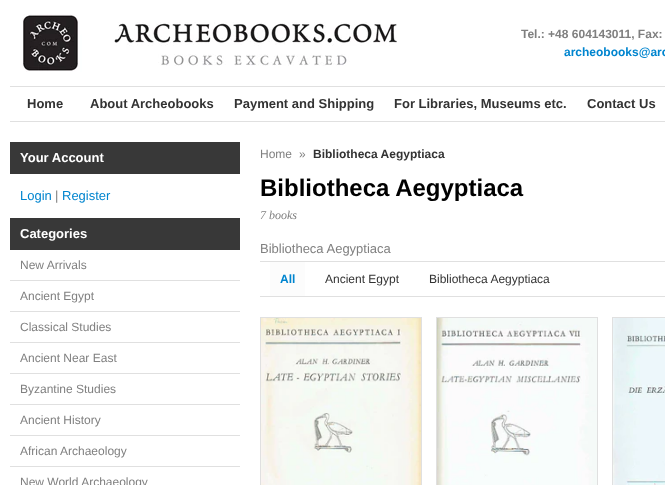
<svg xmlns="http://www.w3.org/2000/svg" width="665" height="485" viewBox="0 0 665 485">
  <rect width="100%" height="100%" fill="#ffffff"/>
  <image x="22" y="14" width="375" height="58" href="img1.png"/>
  <text x="521" y="38" font-family="Liberation Sans" font-size="12" font-weight="bold" fill="#808080">Tel.: +48 604143011, Fax:</text>
  <text x="564" y="56" font-family="Liberation Sans" font-size="12" font-weight="bold" fill="#0085cf">archeobooks@arc</text>
  <rect x="10" y="86" width="655" height="1" fill="#e0e0e0"/>
  <rect x="10" y="121" width="655" height="1" fill="#e0e0e0"/>
  <text x="27" y="108" font-family="Liberation Sans" font-size="13" font-weight="bold" fill="#333333">Home</text>
  <text x="90" y="108" font-family="Liberation Sans" font-size="13" font-weight="bold" fill="#333333">About Archeobooks</text>
  <text x="234" y="108" font-family="Liberation Sans" font-size="13" font-weight="bold" fill="#333333">Payment and Shipping</text>
  <text x="394" y="108" font-family="Liberation Sans" font-size="13" font-weight="bold" fill="#333333">For Libraries, Museums etc.</text>
  <text x="587" y="108" font-family="Liberation Sans" font-size="13" font-weight="bold" fill="#333333">Contact Us</text>
  <rect x="10" y="142" width="230" height="32" fill="#383838"/>
  <text x="20" y="162" font-family="Liberation Sans" font-size="13" font-weight="bold" fill="#ffffff">Your Account</text>
  <text x="20" y="200" font-family="Liberation Sans" font-size="13" fill="#0085cf">Login</text>
  <text x="55" y="200" font-family="Liberation Sans" font-size="13" fill="#808080">|</text>
  <text x="62" y="200" font-family="Liberation Sans" font-size="13" fill="#0085cf">Register</text>
  <rect x="10" y="218" width="230" height="32" fill="#383838"/>
  <text x="20" y="238" font-family="Liberation Sans" font-size="13" font-weight="bold" fill="#ffffff">Categories</text>
  <rect x="10" y="280" width="230" height="1" fill="#e0e0e0"/>
  <text x="20" y="269" font-family="Liberation Sans" font-size="12" fill="#808080">New Arrivals</text>
  <rect x="10" y="311" width="230" height="1" fill="#e0e0e0"/>
  <text x="20" y="300" font-family="Liberation Sans" font-size="12" fill="#808080">Ancient Egypt</text>
  <rect x="10" y="342" width="230" height="1" fill="#e0e0e0"/>
  <text x="20" y="331" font-family="Liberation Sans" font-size="12" fill="#808080">Classical Studies</text>
  <rect x="10" y="373" width="230" height="1" fill="#e0e0e0"/>
  <text x="20" y="362" font-family="Liberation Sans" font-size="12" fill="#808080">Ancient Near East</text>
  <rect x="10" y="404" width="230" height="1" fill="#e0e0e0"/>
  <text x="20" y="393" font-family="Liberation Sans" font-size="12" fill="#808080">Byzantine Studies</text>
  <rect x="10" y="435" width="230" height="1" fill="#e0e0e0"/>
  <text x="20" y="424" font-family="Liberation Sans" font-size="12" fill="#808080">Ancient History</text>
  <rect x="10" y="466" width="230" height="1" fill="#e0e0e0"/>
  <text x="20" y="455" font-family="Liberation Sans" font-size="12" fill="#808080">African Archaeology</text>
  <text x="20" y="486" font-family="Liberation Sans" font-size="12" fill="#808080">New World Archaeology</text>
  <text x="260" y="158" font-family="Liberation Sans" font-size="12" fill="#808080">Home</text>
  <text x="299" y="158" font-family="Liberation Sans" font-size="12" fill="#808080">»</text>
  <text x="313" y="158" font-family="Liberation Sans" font-size="12" font-weight="bold" fill="#333333">Bibliotheca Aegyptiaca</text>
  <text x="260" y="196" font-family="Liberation Sans" font-size="24" font-weight="bold" fill="#000000">Bibliotheca Aegyptiaca</text>
  <text x="260" y="219" font-family="Liberation Serif" font-size="12" font-style="italic" fill="#808080">7 books</text>
  <text x="260" y="253" font-family="Liberation Sans" font-size="13" fill="#808080">Bibliotheca Aegyptiaca</text>
  <rect x="260" y="261" width="405" height="1" fill="#e0e0e0"/>
  <rect x="260" y="296" width="405" height="1" fill="#e0e0e0"/>
  <rect x="270" y="262" width="35" height="34" fill="#fcfcfc"/>
  <text x="280" y="283" font-family="Liberation Sans" font-size="12" font-weight="bold" fill="#0085cf">All</text>
  <text x="325" y="283" font-family="Liberation Sans" font-size="12" fill="#333333">Ancient Egypt</text>
  <text x="429" y="283" font-family="Liberation Sans" font-size="12" fill="#333333">Bibliotheca Aegyptiaca</text>
  <rect x="260.5" y="317.5" width="161" height="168" fill="none" stroke="#e0e0e0"/>
  <image x="261" y="318" width="160" height="167" href="img2.png"/>
  <rect x="436.5" y="317.5" width="161" height="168" fill="none" stroke="#e0e0e0"/>
  <image x="437" y="318" width="160" height="167" href="img3.png"/>
  <rect x="612.5" y="317.5" width="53" height="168" fill="none" stroke="#e0e0e0"/>
  <image x="613" y="318" width="52" height="167" href="img4.png"/>
</svg>
